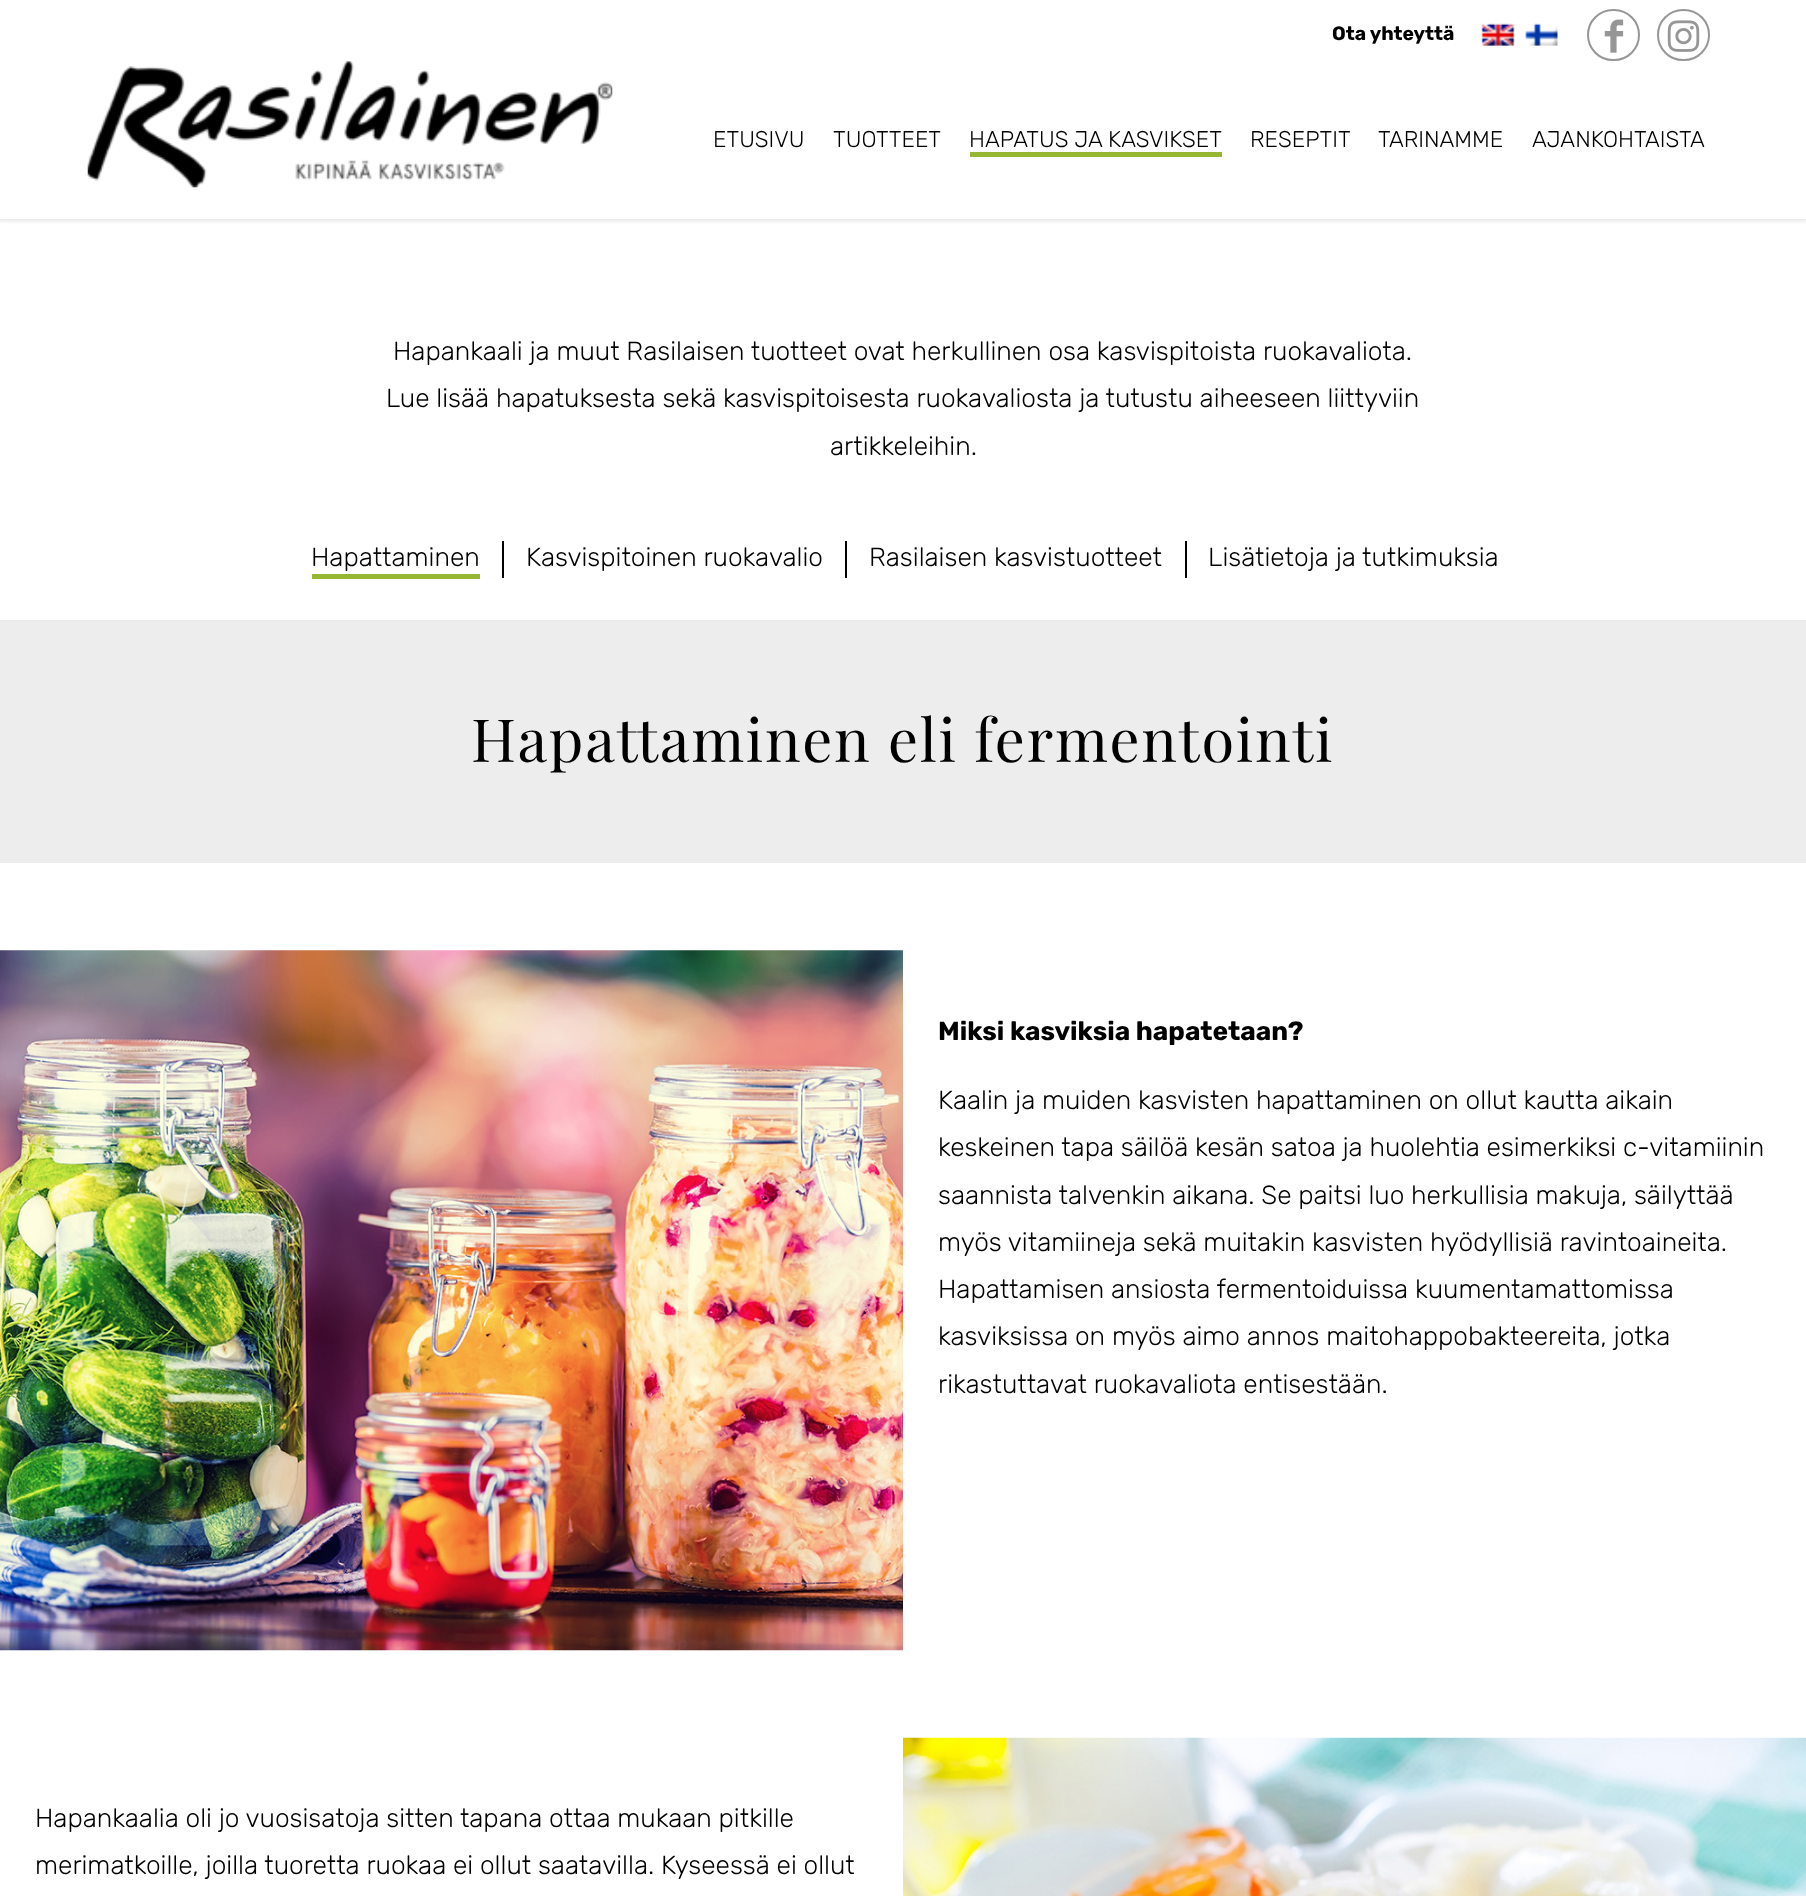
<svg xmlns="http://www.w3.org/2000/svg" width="1806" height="1896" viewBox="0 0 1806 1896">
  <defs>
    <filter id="blur1" x="-50%" y="-200%" width="200%" height="500%"><feGaussianBlur stdDeviation="2"/></filter>
  </defs>
  <rect width="100%" height="100%" fill="#ffffff"/>
  <rect x="-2" y="-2" width="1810" height="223" fill="#000000" fill-opacity="0.1" filter="url(#blur1)"/>
  <rect x="0" y="0" width="1806" height="219" fill="#ffffff"/>
  <text x="1332" y="40" font-family="Rubik" font-size="19.25" font-weight="bold" fill="#000000">Ota yhteyttä</text>
  <image x="1481" y="23" width="34" height="23" href="img1.png"/>
  <image x="1525" y="23" width="33" height="23" href="img2.png"/>
  <rect x="1588" y="10" width="51" height="50" rx="25" fill="none" stroke="#979696" stroke-width="2"/>
  <image x="1604" y="19" width="20" height="34" href="img3.png"/>
  <rect x="1658" y="10" width="51" height="50" rx="25" fill="none" stroke="#979696" stroke-width="2"/>
  <image x="1667" y="20" width="33" height="32" href="img4.png"/>
  <image x="87" y="61" width="526" height="127" href="img5.png"/>
  <text x="713" y="147" font-family="Rubik" font-size="22.75" font-weight="300" fill="#000000">ETUSIVU</text>
  <text x="833" y="147" font-family="Rubik" font-size="22.75" font-weight="300" fill="#000000">TUOTTEET</text>
  <text x="969" y="147" font-family="Rubik" font-size="22.75" font-weight="300" fill="#000000">HAPATUS JA KASVIKSET</text>
  <rect x="970" y="152" width="252" height="5" fill="#96b732"/>
  <text x="1250" y="147" font-family="Rubik" font-size="22.75" font-weight="300" fill="#000000">RESEPTIT</text>
  <text x="1378" y="147" font-family="Rubik" font-size="22.75" font-weight="300" fill="#000000">TARINAMME</text>
  <text x="1532" y="147" font-family="Rubik" font-size="22.75" font-weight="300" fill="#000000">AJANKOHTAISTA</text>
  <text x="393" y="360" font-family="Rubik" font-size="26.25" font-weight="300" fill="#000000">Hapankaali ja muut Rasilaisen tuotteet ovat herkullinen osa kasvispitoista ruokavaliota.</text>
  <text x="386" y="407" font-family="Rubik" font-size="26.25" font-weight="300" fill="#000000">Lue lisää hapatuksesta sekä kasvispitoisesta ruokavaliosta ja tutustu aiheeseen liittyviin</text>
  <text x="830" y="455" font-family="Rubik" font-size="26.25" font-weight="300" fill="#000000">artikkeleihin.</text>
  <text x="311" y="566" font-family="Rubik" font-size="26.25" font-weight="300" fill="#000000">Hapattaminen</text>
  <rect x="312" y="574" width="168" height="5" fill="#96b732"/>
  <rect x="502" y="541" width="2" height="37" fill="#000000"/>
  <text x="526" y="566" font-family="Rubik" font-size="26.25" font-weight="300" fill="#000000">Kasvispitoinen ruokavalio</text>
  <rect x="845" y="541" width="2" height="37" fill="#000000"/>
  <text x="869" y="566" font-family="Rubik" font-size="26.25" font-weight="300" fill="#000000">Rasilaisen kasvistuotteet</text>
  <rect x="1185" y="541" width="2" height="37" fill="#000000"/>
  <text x="1208" y="566" font-family="Rubik" font-size="26.25" font-weight="300" fill="#000000">Lisätietoja ja tutkimuksia</text>
  <rect x="0" y="620" width="1806" height="243" fill="#ededed"/>
  <text x="471" y="762" font-family="Playfair Display" font-size="59.5" letter-spacing="1.75" fill="#000000">Hapattaminen eli fermentointi</text>
  <image x="0" y="950" width="903" height="701" href="img6.png"/>
  <text x="938" y="1040" font-family="Rubik" font-size="26.25" font-weight="bold" fill="#000000">Miksi kasviksia hapatetaan?</text>
  <text x="938" y="1109" font-family="Rubik" font-size="26.25" font-weight="300" fill="#000000">Kaalin ja muiden kasvisten hapattaminen on ollut kautta aikain</text>
  <text x="938" y="1156" font-family="Rubik" font-size="26.25" font-weight="300" fill="#000000">keskeinen tapa säilöä kesän satoa ja huolehtia esimerkiksi c-vitamiinin</text>
  <text x="938" y="1204" font-family="Rubik" font-size="26.25" font-weight="300" fill="#000000">saannista talvenkin aikana. Se paitsi luo herkullisia makuja, säilyttää</text>
  <text x="938" y="1251" font-family="Rubik" font-size="26.25" font-weight="300" fill="#000000">myös vitamiineja sekä muitakin kasvisten hyödyllisiä ravintoaineita.</text>
  <text x="938" y="1298" font-family="Rubik" font-size="26.25" font-weight="300" fill="#000000">Hapattamisen ansiosta fermentoiduissa kuumentamattomissa</text>
  <text x="938" y="1345" font-family="Rubik" font-size="26.25" font-weight="300" fill="#000000">kasviksissa on myös aimo annos maitohappobakteereita, jotka</text>
  <text x="938" y="1393" font-family="Rubik" font-size="26.25" font-weight="300" fill="#000000">rikastuttavat ruokavaliota entisestään.</text>
  <text x="35" y="1827" font-family="Rubik" font-size="26.25" font-weight="300" fill="#000000">Hapankaalia oli jo vuosisatoja sitten tapana ottaa mukaan pitkille</text>
  <text x="35" y="1874" font-family="Rubik" font-size="26.25" font-weight="300" fill="#000000">merimatkoille, joilla tuoretta ruokaa ei ollut saatavilla. Kyseessä ei ollut</text>
  <image x="903" y="1737" width="903" height="159" href="img7.png"/>
</svg>
